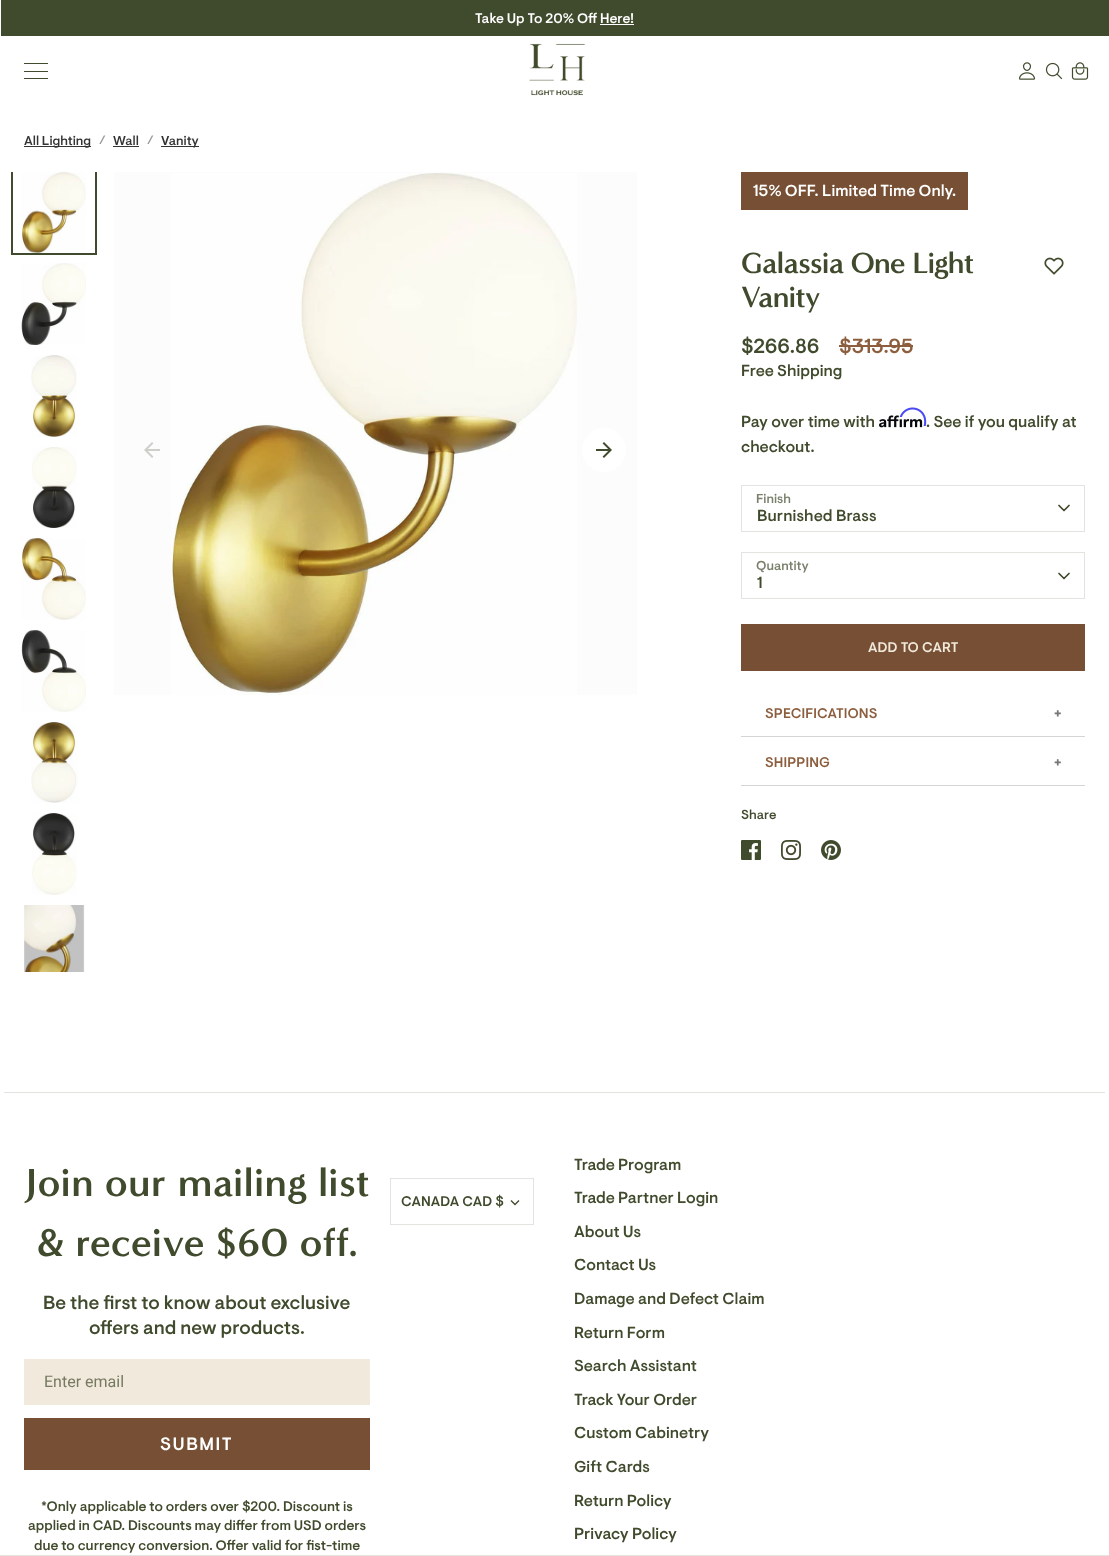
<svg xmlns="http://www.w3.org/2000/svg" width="1109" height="1556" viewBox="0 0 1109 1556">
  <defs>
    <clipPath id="clip1"><rect x="9" y="172" width="90" height="800"/></clipPath>
  </defs>
  <rect width="100%" height="100%" fill="#ffffff"/>
  <rect x="1" y="0" width="1108" height="36" fill="#404a2c"/>
  <text x="475" y="23" font-family="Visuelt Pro" font-size="13.9" font-weight="500" fill="#ffffff">Take Up To 20% Off Here!</text>
  <rect x="600" y="24" width="34" height="1" fill="#ffffff"/>
  <rect x="24" y="63" width="24" height="1" fill="#404a2c"/>
  <rect x="24" y="71" width="24" height="1" fill="#404a2c"/>
  <rect x="24" y="78" width="24" height="1" fill="#404a2c"/>
  <image x="529" y="43" width="56" height="53" href="img1.png"/>
  <image x="1018" y="62" width="18" height="18" href="img2.png"/>
  <image x="1045" y="62" width="18" height="18" href="img3.png"/>
  <image x="1071" y="62" width="18" height="18" href="img4.png"/>
  <rect x="0" y="1555" width="1109" height="1" fill="#e2e4df"/>
  <rect x="24" y="146" width="67" height="1" fill="#333333"/>
  <text x="24" y="145" font-family="Visuelt Pro" font-size="13" font-weight="500" fill="#333333">All Lighting</text>
  <text x="99" y="144" font-family="Visuelt Pro" font-size="12" font-weight="500" fill="#999999">/</text>
  <text x="113" y="145" font-family="Visuelt Pro" font-size="13" font-weight="500" fill="#333333">Wall</text>
  <rect x="113" y="146" width="26" height="1" fill="#333333"/>
  <text x="147" y="144" font-family="Visuelt Pro" font-size="12" font-weight="500" fill="#999999">/</text>
  <rect x="161" y="146" width="38" height="1" fill="#333333"/>
  <text x="161" y="145" font-family="Visuelt Pro" font-size="13" font-weight="500" fill="#333333">Vanity</text>
  <g clip-path="url(#clip1)">
    <rect x="12" y="171" width="84" height="83" fill="none" stroke="#404a2c" stroke-width="2"/>
  </g>
  <image x="21" y="172" width="65" height="81" href="img5.png"/>
  <image x="21" y="263" width="65" height="82" href="img6.png"/>
  <image x="31" y="355" width="46" height="82" href="img7.png"/>
  <image x="32" y="447" width="45" height="81" href="img8.png"/>
  <image x="21" y="538" width="65" height="82" href="img9.png"/>
  <image x="21" y="630" width="65" height="82" href="img10.png"/>
  <image x="31" y="722" width="47" height="81" href="img11.png"/>
  <image x="32" y="813" width="45" height="82" href="img12.png"/>
  <image x="24" y="905" width="61" height="67" href="img13.png"/>
  <rect x="114" y="172" width="523" height="523" fill="#fcfcfc"/>
  <image x="171" y="173" width="406" height="522" href="img14.png"/>
  <image x="144" y="442" width="16" height="16" href="img15.png"/>
  <circle cx="604" cy="450" r="22" fill="#ffffff"/>
  <image x="596" y="442" width="16" height="16" href="img16.png"/>
  <rect x="741" y="172" width="227" height="38" fill="#764f34"/>
  <text x="753" y="196" font-family="Visuelt Pro" font-size="16" font-weight="500" fill="#ffffff">15% OFF. Limited Time Only.</text>
  <text x="741" y="273" font-family="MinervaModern" font-size="30" font-weight="bold" letter-spacing="-0.9" fill="#404a2c">Galassia One Light</text>
  <text x="741" y="307" font-family="MinervaModern" font-size="30" font-weight="bold" letter-spacing="-0.9" fill="#404a2c">Vanity</text>
  <image x="1044" y="257" width="20" height="18" href="img17.png"/>
  <text x="741" y="353" font-family="Visuelt Pro" font-size="20.5" font-weight="500" fill="#404a2c">$266.86</text>
  <text x="839" y="353" font-family="Visuelt Pro" font-size="20.5" font-weight="500" fill="#8c5e3e">$313.95</text>
  <rect x="839" y="345" width="74" height="2" fill="#8c5e3e"/>
  <text x="741" y="376" font-family="Visuelt Pro" font-size="16" font-weight="500" fill="#404a2c">Free Shipping</text>
  <text x="741" y="427" font-family="Visuelt Pro" font-size="16" font-weight="500" fill="#404a2c">Pay over time with</text>
  <image x="879" y="415" width="44" height="13" href="img19.png"/>
  <text x="926" y="427" font-family="Visuelt Pro" font-size="16" font-weight="500" fill="#404a2c">. See if you qualify at</text>
  <image x="899" y="407" width="28" height="20" href="img18.png"/>
  <text x="741" y="452" font-family="Visuelt Pro" font-size="16" font-weight="500" fill="#404a2c">checkout.</text>
  <text x="756" y="503" font-family="Visuelt Pro" font-size="13" font-weight="500" fill="#79806b">Finish</text>
  <rect x="741.5" y="485.5" width="343" height="46" fill="none" stroke="#e2e4df"/>
  <path d="M1059 505.5L1064 510.5L1069 505.5" fill="none" stroke="#404a2c" stroke-width="1.7" stroke-linecap="round" stroke-linejoin="round"/>
  <text x="757" y="521" font-family="Visuelt Pro" font-size="16" font-weight="500" letter-spacing="0.1" fill="#404a2c">Burnished Brass</text>
  <text x="756" y="570" font-family="Visuelt Pro" font-size="13" font-weight="500" fill="#79806b">Quantity</text>
  <rect x="741.5" y="552.5" width="343" height="46" fill="none" stroke="#e2e4df"/>
  <text x="757" y="588" font-family="Visuelt Pro" font-size="16" font-weight="500" letter-spacing="0.1" fill="#404a2c">1</text>
  <path d="M1059 573.5L1064 578.5L1069 573.5" fill="none" stroke="#404a2c" stroke-width="1.7" stroke-linecap="round" stroke-linejoin="round"/>
  <rect x="741" y="624" width="344" height="47" fill="#764f34"/>
  <text x="868" y="652" font-family="Visuelt Pro" font-size="14" font-weight="500" letter-spacing="0.1" fill="#f1e9db">ADD TO CART</text>
  <rect x="741" y="736" width="344" height="1" fill="#d5d5d5"/>
  <text x="765" y="718" font-family="Visuelt Pro" font-size="14" font-weight="500" letter-spacing="0.1" fill="#8c5e3e">SPECIFICATIONS</text>
  <text x="1054" y="718" font-family="Visuelt Pro" font-size="14" font-weight="bold" letter-spacing="0.1" fill="#777777">+</text>
  <rect x="741" y="785" width="344" height="1" fill="#d5d5d5"/>
  <text x="765" y="767" font-family="Visuelt Pro" font-size="14" font-weight="500" letter-spacing="0.1" fill="#8c5e3e">SHIPPING</text>
  <text x="1054" y="767" font-family="Visuelt Pro" font-size="14" font-weight="bold" letter-spacing="0.1" fill="#777777">+</text>
  <text x="741" y="819" font-family="Visuelt Pro" font-size="13" font-weight="500" fill="#404a2c">Share</text>
  <image x="741" y="840" width="20" height="20" href="img20.png"/>
  <image x="781" y="840" width="20" height="20" href="img21.png"/>
  <image x="821" y="840" width="20" height="20" href="img22.png"/>
  <rect x="4" y="1092" width="1101" height="1" fill="#e2e4df"/>
  <text x="25" y="1196" font-family="MinervaModern" font-size="40" font-weight="bold" fill="#404a2c">Join our mailing list</text>
  <text x="36" y="1256" font-family="MinervaModern" font-size="40" font-weight="bold" fill="#404a2c">&amp; receive $60 off.</text>
  <text x="43" y="1309" font-family="Visuelt Pro" font-size="19" font-weight="500" fill="#404a2c">Be the first to know about exclusive</text>
  <text x="89" y="1334" font-family="Visuelt Pro" font-size="19" font-weight="500" fill="#404a2c">offers and new products.</text>
  <rect x="24" y="1359" width="346" height="46" fill="#f1e9db"/>
  <text x="44" y="1387" font-family="Roboto" font-size="16" fill="#757a61">Enter email</text>
  <rect x="24" y="1418" width="346" height="52" fill="#764f34"/>
  <text x="160" y="1450" font-family="Visuelt Pro" font-size="18" font-weight="500" letter-spacing="1.5" fill="#ffffff">SUBMIT</text>
  <text x="41" y="1511" font-family="Visuelt Pro" font-size="13.9" font-weight="500" fill="#404a2c">*Only applicable to orders over $200. Discount is</text>
  <text x="28" y="1530" font-family="Visuelt Pro" font-size="13.9" font-weight="500" fill="#404a2c">applied in CAD. Discounts may differ from USD orders</text>
  <text x="34" y="1550" font-family="Visuelt Pro" font-size="13.9" font-weight="500" fill="#404a2c">due to currency conversion. Offer valid for fist-time</text>
  <rect x="390.5" y="1178.5" width="143" height="46" fill="none" stroke="#e2e4df"/>
  <text x="401" y="1206" font-family="Visuelt Pro" font-size="14" font-weight="500" letter-spacing="0.1" fill="#404a2c">CANADA CAD $</text>
  <path d="M511 1200.5L515 1204.5L519 1200.5" fill="none" stroke="#404a2c" stroke-width="1.3"/>
  <text x="574" y="1170" font-family="Visuelt Pro" font-size="16" font-weight="500" fill="#404a2c">Trade Program</text>
  <text x="574" y="1203" font-family="Visuelt Pro" font-size="16" font-weight="500" fill="#404a2c">Trade Partner Login</text>
  <text x="574" y="1237" font-family="Visuelt Pro" font-size="16" font-weight="500" fill="#404a2c">About Us</text>
  <text x="574" y="1270" font-family="Visuelt Pro" font-size="16" font-weight="500" fill="#404a2c">Contact Us</text>
  <text x="574" y="1304" font-family="Visuelt Pro" font-size="16" font-weight="500" fill="#404a2c">Damage and Defect Claim</text>
  <text x="574" y="1338" font-family="Visuelt Pro" font-size="16" font-weight="500" fill="#404a2c">Return Form</text>
  <text x="574" y="1371" font-family="Visuelt Pro" font-size="16" font-weight="500" fill="#404a2c">Search Assistant</text>
  <text x="574" y="1405" font-family="Visuelt Pro" font-size="16" font-weight="500" fill="#404a2c">Track Your Order</text>
  <text x="574" y="1438" font-family="Visuelt Pro" font-size="16" font-weight="500" fill="#404a2c">Custom Cabinetry</text>
  <text x="574" y="1472" font-family="Visuelt Pro" font-size="16" font-weight="500" fill="#404a2c">Gift Cards</text>
  <text x="574" y="1506" font-family="Visuelt Pro" font-size="16" font-weight="500" fill="#404a2c">Return Policy</text>
  <text x="574" y="1539" font-family="Visuelt Pro" font-size="16" font-weight="500" fill="#404a2c">Privacy Policy</text>
</svg>
